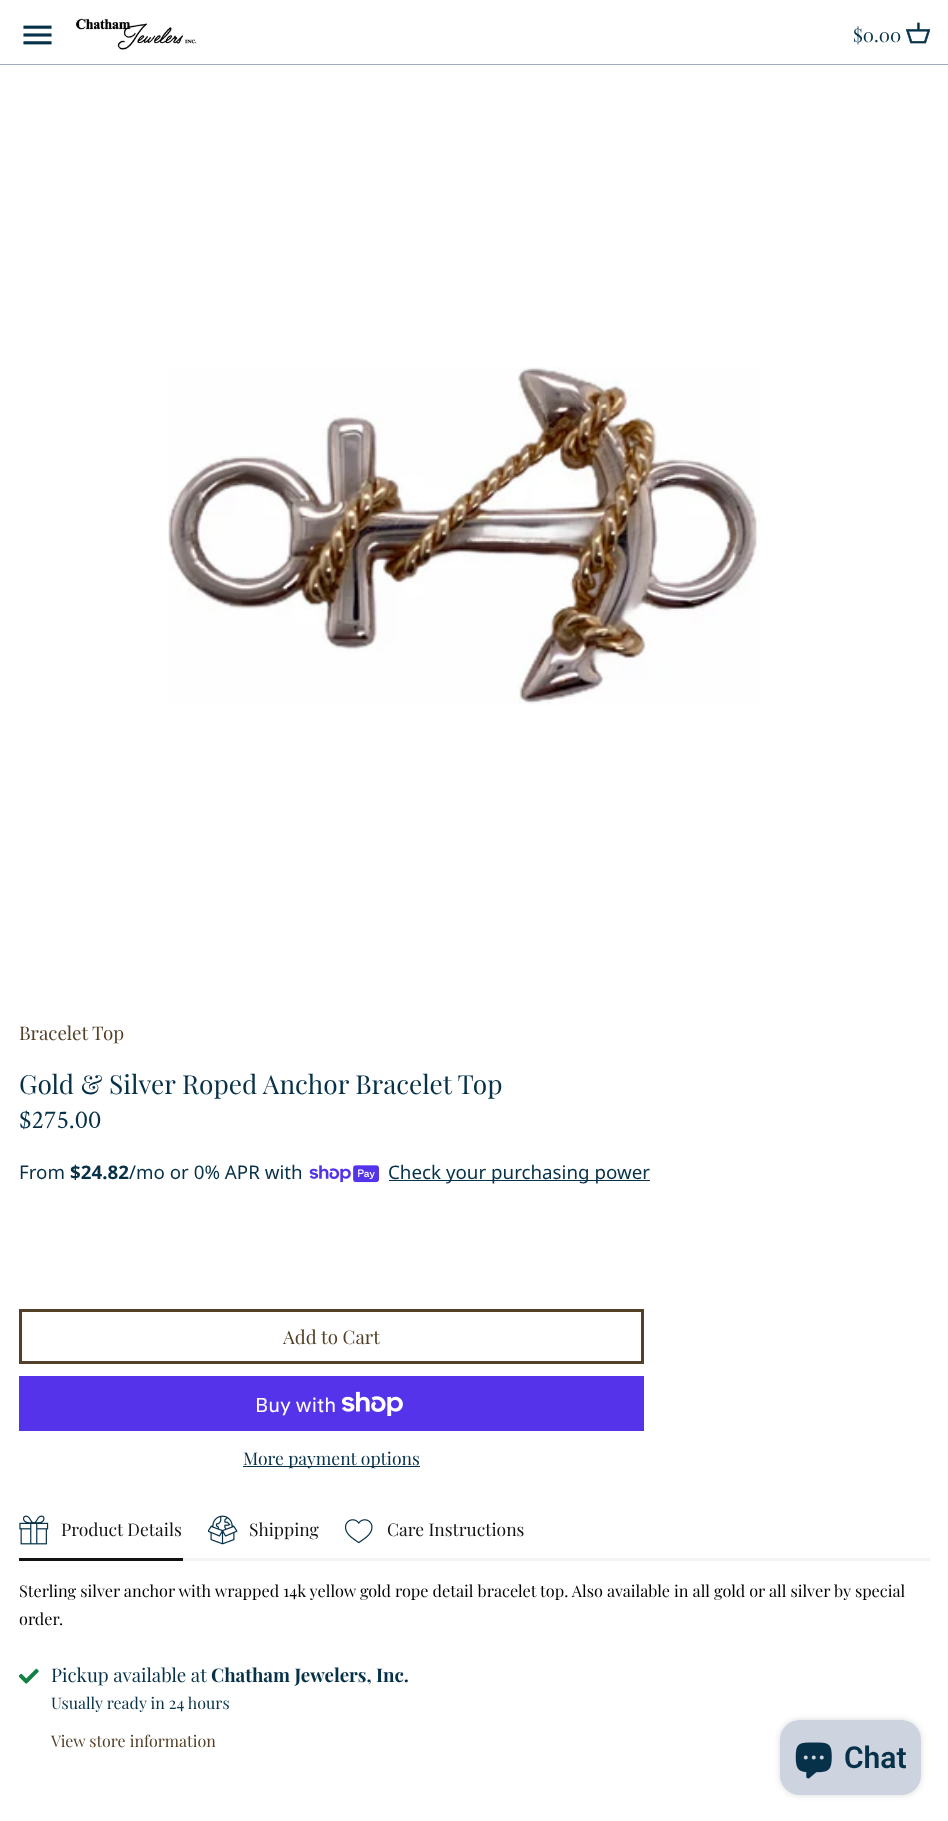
<svg xmlns="http://www.w3.org/2000/svg" width="948" height="1821" viewBox="0 0 948 1821">
  <defs>
    <filter id="blur1" x="-50%" y="-200%" width="200%" height="500%"><feGaussianBlur stdDeviation="3"/></filter>
  </defs>
  <rect width="100%" height="100%" fill="#ffffff"/>
  <rect x="0" y="64" width="948" height="1" fill="#9dadbc"/>
  <image x="23" y="25" width="29" height="20" href="img1.png"/>
  <image x="75" y="18" width="122" height="32" href="img2.png"/>
  <text x="853" y="42" font-family="Playfair Display" font-size="18.75" fill="#063148">$0.00</text>
  <image x="906" y="22" width="24" height="22" href="img3.png"/>
  <image x="168" y="367" width="592" height="338" href="img4.png"/>
  <text x="19" y="1040" font-family="Playfair Display" font-size="18.75" fill="#544028">Bracelet Top</text>
  <text x="19" y="1094" font-family="Playfair Display" font-size="26.25" fill="#063148">Gold &amp; Silver Roped Anchor Bracelet Top</text>
  <text x="19" y="1128" font-family="Crimson Text" font-size="26.25" fill="#063148">$275.00</text>
  <text x="19" y="1179" font-family="Noto Sans" font-size="18.75" fill="#063148">From</text>
  <text x="70" y="1179" font-family="Noto Sans" font-size="18.75" font-weight="bold" fill="#063148">$24.82</text>
  <text x="129" y="1179" font-family="Noto Sans" font-size="18.75" fill="#063148">/mo or 0% APR with</text>
  <image x="309" y="1165" width="70" height="18" href="img5.png"/>
  <rect x="389" y="1180" width="261" height="1" fill="#063148"/>
  <text x="388" y="1179" font-family="Noto Sans" font-size="18.75" fill="#063148">Check your purchasing power</text>
  <rect x="20.5" y="1310.5" width="622" height="52" fill="none" stroke="#544028" stroke-width="3"/>
  <text x="283" y="1344" font-family="Playfair Display" font-size="18.75" fill="#544028">Add to Cart</text>
  <rect x="19" y="1376" width="625" height="55" fill="#5433eb"/>
  <text x="255" y="1412" font-family="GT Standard" font-size="20" fill="#ffffff">Buy with</text>
  <image x="341" y="1391" width="62" height="25" href="img6.png"/>
  <rect x="243" y="1466" width="177" height="1" fill="#063148"/>
  <text x="243" y="1465" font-family="Playfair Display" font-size="17.5" fill="#063148">More payment options</text>
  <image x="19" y="1515" width="30" height="30" href="img7.png"/>
  <text x="61" y="1536" font-family="Playfair Display" font-size="17.5" fill="#121212">Product Details</text>
  <image x="208" y="1515" width="30" height="30" href="img8.png"/>
  <text x="249" y="1536" font-family="Playfair Display" font-size="17.5" fill="#121212">Shipping</text>
  <image x="345" y="1519" width="28" height="25" href="img9.png"/>
  <text x="387" y="1536" font-family="Playfair Display" font-size="17.5" fill="#121212">Care Instructions</text>
  <rect x="183" y="1558" width="747" height="3" fill="#f3f3f3"/>
  <rect x="19" y="1558" width="164" height="3" fill="#121212"/>
  <text x="19" y="1597" font-family="Playfair Display" font-size="16.25" fill="#000000">Sterling silver anchor with wrapped 14k yellow gold rope detail bracelet top. Also available in all gold or all silver by special</text>
  <text x="19" y="1625" font-family="Playfair Display" font-size="16.25" fill="#000000">order.</text>
  <image x="19" y="1668" width="20" height="16" href="img10.png"/>
  <text x="51" y="1682" font-family="Playfair Display" font-size="18.75" fill="#063148">Pickup available at</text>
  <text x="211" y="1682" font-family="Playfair Display" font-size="18.75" font-weight="bold" fill="#063148">Chatham Jewelers, Inc.</text>
  <text x="51" y="1709" font-family="Playfair Display" font-size="16" fill="#063148">Usually ready in 24 hours</text>
  <text x="51" y="1747" font-family="Playfair Display" font-size="16" fill="#544028">View store information</text>
  <rect x="780" y="1720" width="141" height="75" rx="20" fill="#000000" fill-opacity="0.15" filter="url(#blur1)"/>
  <rect x="780" y="1720" width="141" height="75" rx="20" fill="#cdd3df"/>
  <image x="795" y="1742" width="37" height="37" href="img11.png"/>
  <text x="844" y="1768" font-family="Roboto" font-size="30" font-weight="600" fill="#063148">Chat</text>
</svg>
